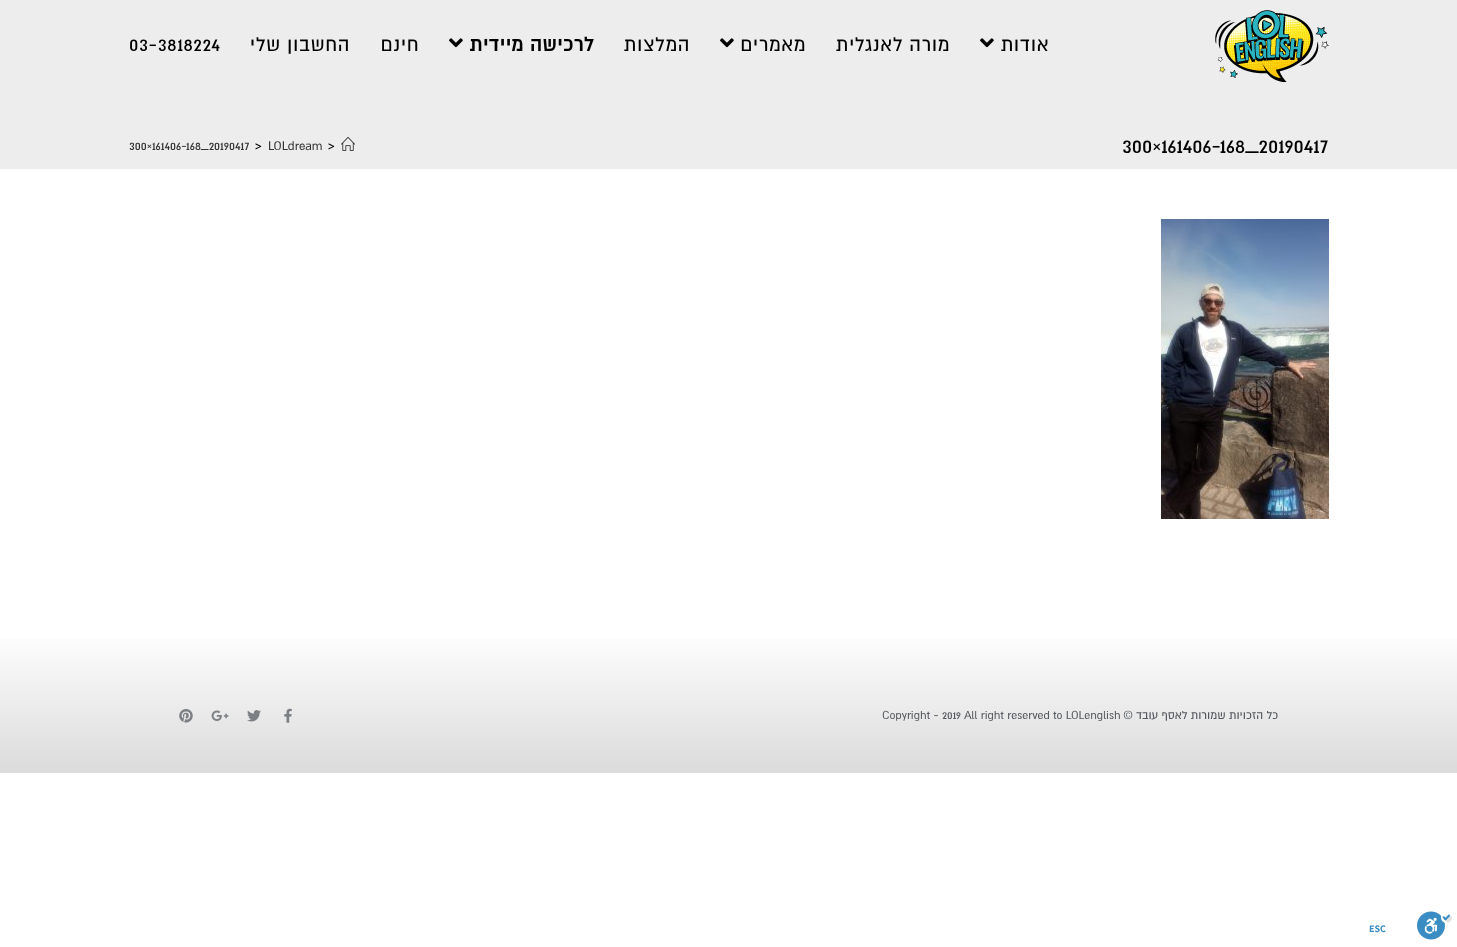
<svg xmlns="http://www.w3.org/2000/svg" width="1457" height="947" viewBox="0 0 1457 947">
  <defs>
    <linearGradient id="g1" gradientUnits="userSpaceOnUse" x1="729" y1="629" x2="729" y2="773"><stop offset="0" stop-color="#ffffff"/><stop offset="1" stop-color="#dbdbdb"/></linearGradient>
  </defs>
  <rect width="100%" height="100%" fill="#ffffff"/>
  <rect x="0" y="0" width="1457" height="169" fill="#ededed"/>
  <text x="129" y="51" font-family="'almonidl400'" font-size="22" letter-spacing="0.6" fill="#000000">03-3818224</text>
  <text x="350" y="51" font-family="'almonidl400'" font-size="22" letter-spacing="0.6" direction="rtl" fill="#000000">החשבון שלי</text>
  <text x="419" y="51" font-family="'almonidl400'" font-size="22" letter-spacing="0.6" direction="rtl" fill="#000000">חינם</text>
  <image x="449" y="38" width="14" height="10" href="img1.png"/>
  <text x="594" y="51" font-family="'almonidl400'" font-size="22" font-weight="bold" letter-spacing="0.6" direction="rtl" fill="#000000">לרכישה מיידית</text>
  <text x="690" y="51" font-family="'almonidl400'" font-size="22" letter-spacing="0.6" direction="rtl" fill="#000000">המלצות</text>
  <image x="720" y="38" width="14" height="10" href="img1.png"/>
  <text x="806" y="51" font-family="'almonidl400'" font-size="22" letter-spacing="0.6" direction="rtl" fill="#000000">מאמרים</text>
  <text x="950" y="51" font-family="'almonidl400'" font-size="22" letter-spacing="0.6" direction="rtl" fill="#000000">מורה לאנגלית</text>
  <image x="980" y="38" width="14" height="10" href="img1.png"/>
  <text x="1049" y="51" font-family="'almonidl400'" font-size="22" letter-spacing="0.6" direction="rtl" fill="#000000">אודות</text>
  <image x="1215" y="10" width="114" height="72" href="img2.png"/>
  <text x="129" y="150" font-family="'almonidl400'" font-size="14" fill="#333333">300×161406-168_20190417</text>
  <text x="255" y="150" font-family="'almonidl400'" font-size="14" fill="#000000">&gt;</text>
  <text x="268" y="150" font-family="'almonidl400'" font-size="14" fill="#333333">LOLdream</text>
  <text x="328" y="150" font-family="'almonidl400'" font-size="14" fill="#000000">&gt;</text>
  <image x="341" y="136" width="14" height="15" href="img3.png"/>
  <text x="1122" y="153" font-family="'almonidl400'" font-size="24" fill="#000000">300×161406-168_20190417</text>
  <image x="1161" y="219" width="168" height="300" href="img4.png"/>
  <rect x="0" y="639" width="1457" height="134" fill="url(#g1)"/>
  <image x="179" y="709" width="14" height="14" href="img5.png"/>
  <image x="211" y="710" width="18" height="11" href="img6.png"/>
  <image x="247" y="710" width="14" height="12" href="img7.png"/>
  <image x="284" y="708" width="8" height="15" href="img8.png"/>
  <text x="882" y="719" font-family="'almonidl400'" font-size="13" fill="#54595f">Copyright - 2019 All right reserved to LOLenglish</text>
  <text x="1278" y="719" font-family="'almonidl400'" font-size="13" direction="rtl" fill="#54595f">כל הזכויות שמורות לאסף עובד ©</text>
  <text x="1369" y="932" font-family="Assistant" font-size="10" font-weight="bold" fill="#3a8dc2">ESC</text>
  <image x="1417" y="911" width="35" height="29" href="img9.png"/>
</svg>
